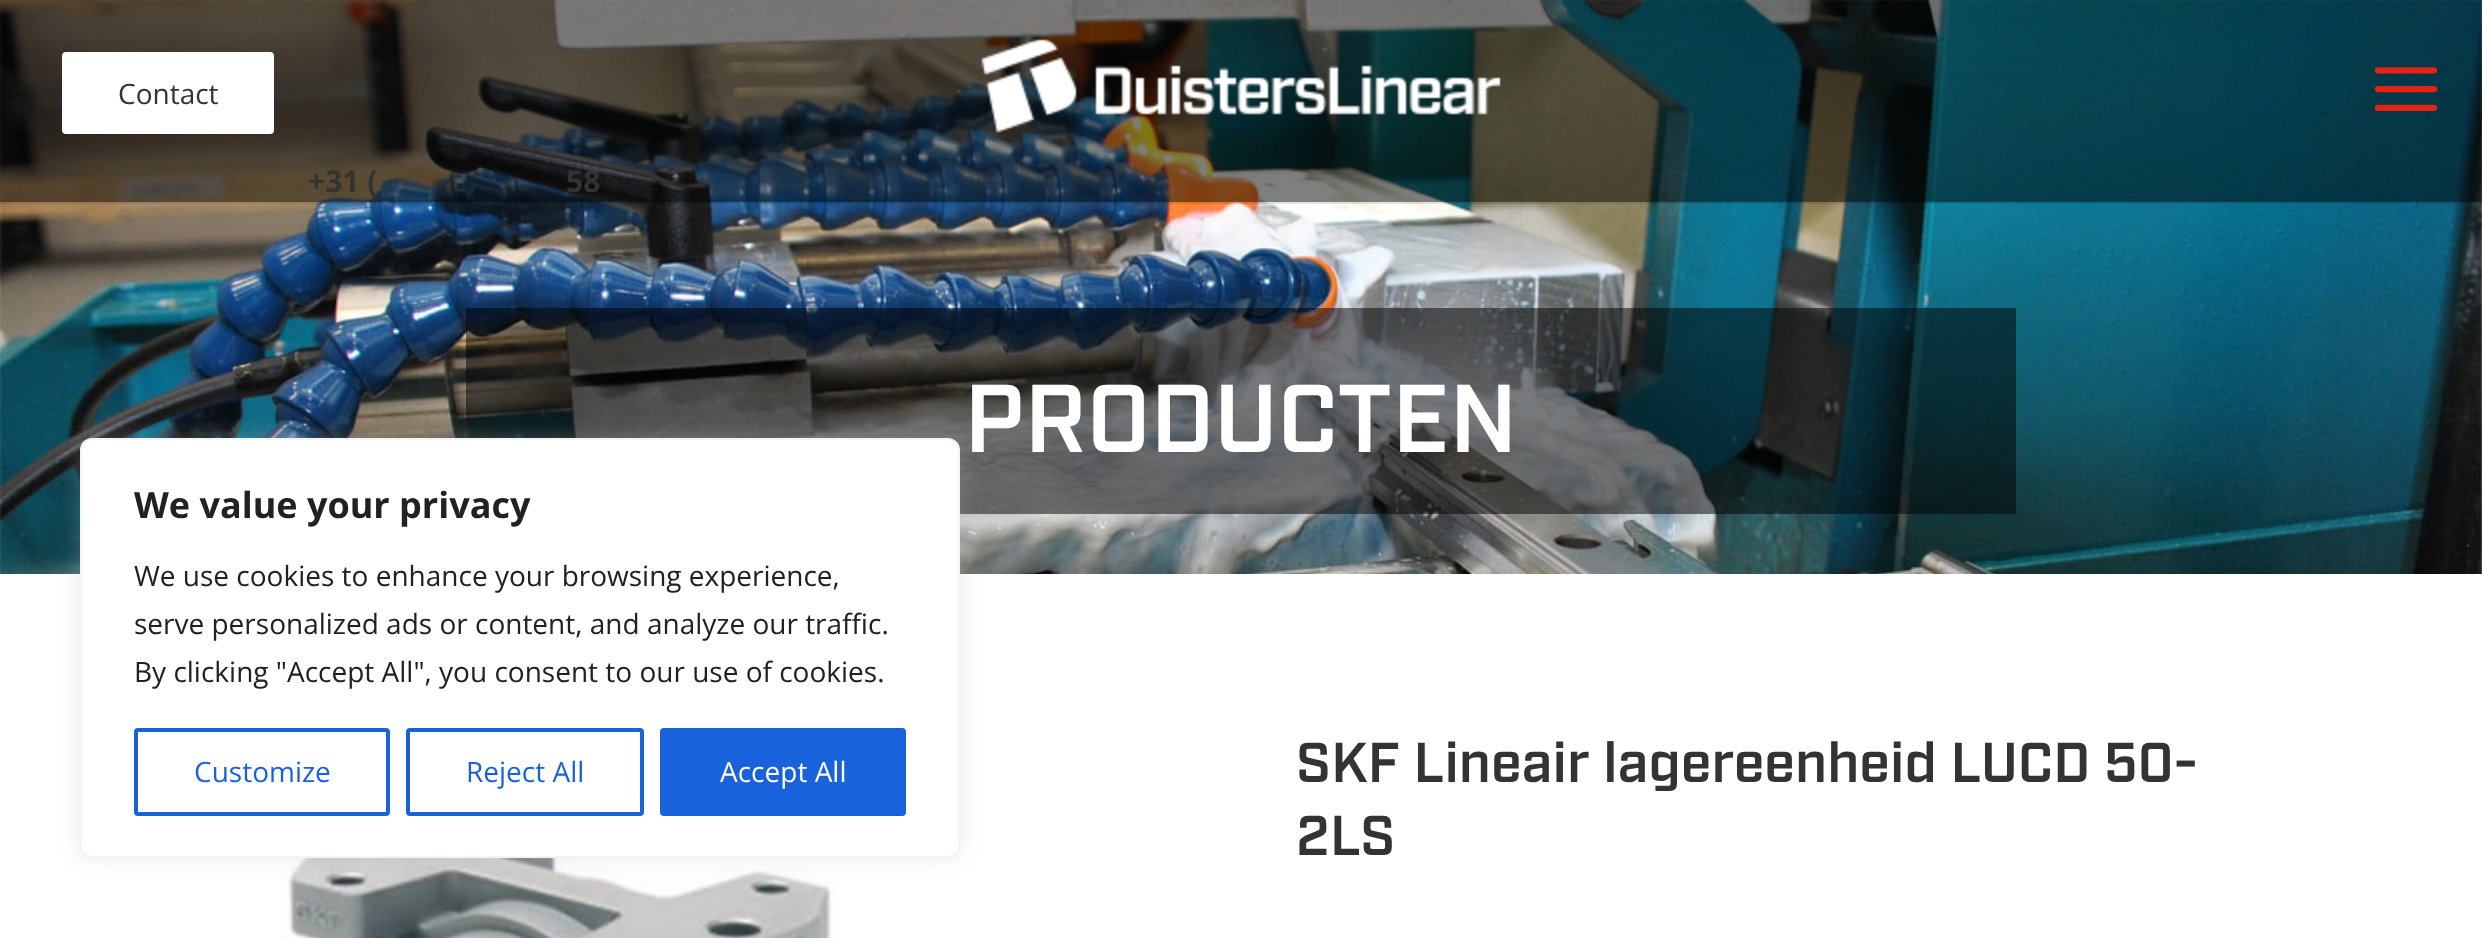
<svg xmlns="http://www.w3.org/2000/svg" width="2482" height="938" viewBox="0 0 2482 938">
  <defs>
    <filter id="blur1" x="-50%" y="-200%" width="200%" height="500%"><feGaussianBlur stdDeviation="10"/></filter>
  </defs>
  <rect width="100%" height="100%" fill="#ffffff"/>
  <image x="0" y="0" width="2482" height="574" href="img3.png"/>
  <rect x="0" y="202" width="2482" height="2" fill="#000000" fill-opacity="0.1"/>
  <rect x="0" y="0" width="2482" height="202" fill="#000000" fill-opacity="0.5"/>
  <rect x="62" y="52" width="212" height="82" rx="4" fill="#ffffff"/>
  <text x="118" y="104" font-family="Open Sans" font-size="28" fill="#333333">Contact</text>
  <text x="308" y="192" font-family="Open Sans" font-size="30" font-weight="bold" fill="#333333">+31 (</text>
  <text x="566" y="192" font-family="Open Sans" font-size="30" font-weight="bold" fill="#333333">58</text>
  <image x="981" y="39" width="520" height="94" href="img1.png"/>
  <image x="2374" y="67" width="64" height="44" href="img2.png"/>
  <rect x="466" y="308" width="1550" height="206" fill="#000000" fill-opacity="0.5"/>
  <text x="964" y="452" font-family="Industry" font-size="96" font-weight="600" fill="#ffffff">PRODUCTEN</text>
  <text x="1296" y="782" font-family="Industry" font-size="56" font-weight="600" fill="#333333">SKF Lineair lagereenheid LUCD 50-</text>
  <text x="1296" y="855" font-family="Industry" font-size="56" font-weight="600" fill="#333333">2LS</text>
  <image x="280" y="858" width="556" height="80" href="img4.png"/>
  <rect x="80" y="436" width="880" height="420" rx="12" fill="#acabab" fill-opacity="0.3" filter="url(#blur1)"/>
  <rect x="81" y="439" width="878" height="418" rx="11" fill="#ffffff" stroke="#f4f4f4" stroke-width="2"/>
  <text x="134" y="518" font-family="Open Sans" font-size="36" font-weight="bold" fill="#212121">We value your privacy</text>
  <text x="134" y="586" font-family="Open Sans" font-size="28" fill="#212121">We use cookies to enhance your browsing experience,</text>
  <text x="134" y="634" font-family="Open Sans" font-size="28" fill="#212121">serve personalized ads or content, and analyze our traffic.</text>
  <text x="134" y="682" font-family="Open Sans" font-size="28" fill="#212121">By clicking "Accept All", you consent to our use of cookies.</text>
  <rect x="136" y="730" width="252" height="84" rx="2" fill="none" stroke="#1863dc" stroke-width="4"/>
  <text x="194" y="782" font-family="Open Sans" font-size="28" fill="#1863dc">Customize</text>
  <rect x="408" y="730" width="234" height="84" rx="2" fill="none" stroke="#1863dc" stroke-width="4"/>
  <text x="466" y="782" font-family="Open Sans" font-size="28" fill="#1863dc">Reject All</text>
  <rect x="662" y="730" width="242" height="84" rx="2" fill="#1863dc" stroke="#1863dc" stroke-width="4"/>
  <text x="720" y="782" font-family="Open Sans" font-size="28" fill="#ffffff">Accept All</text>
</svg>
